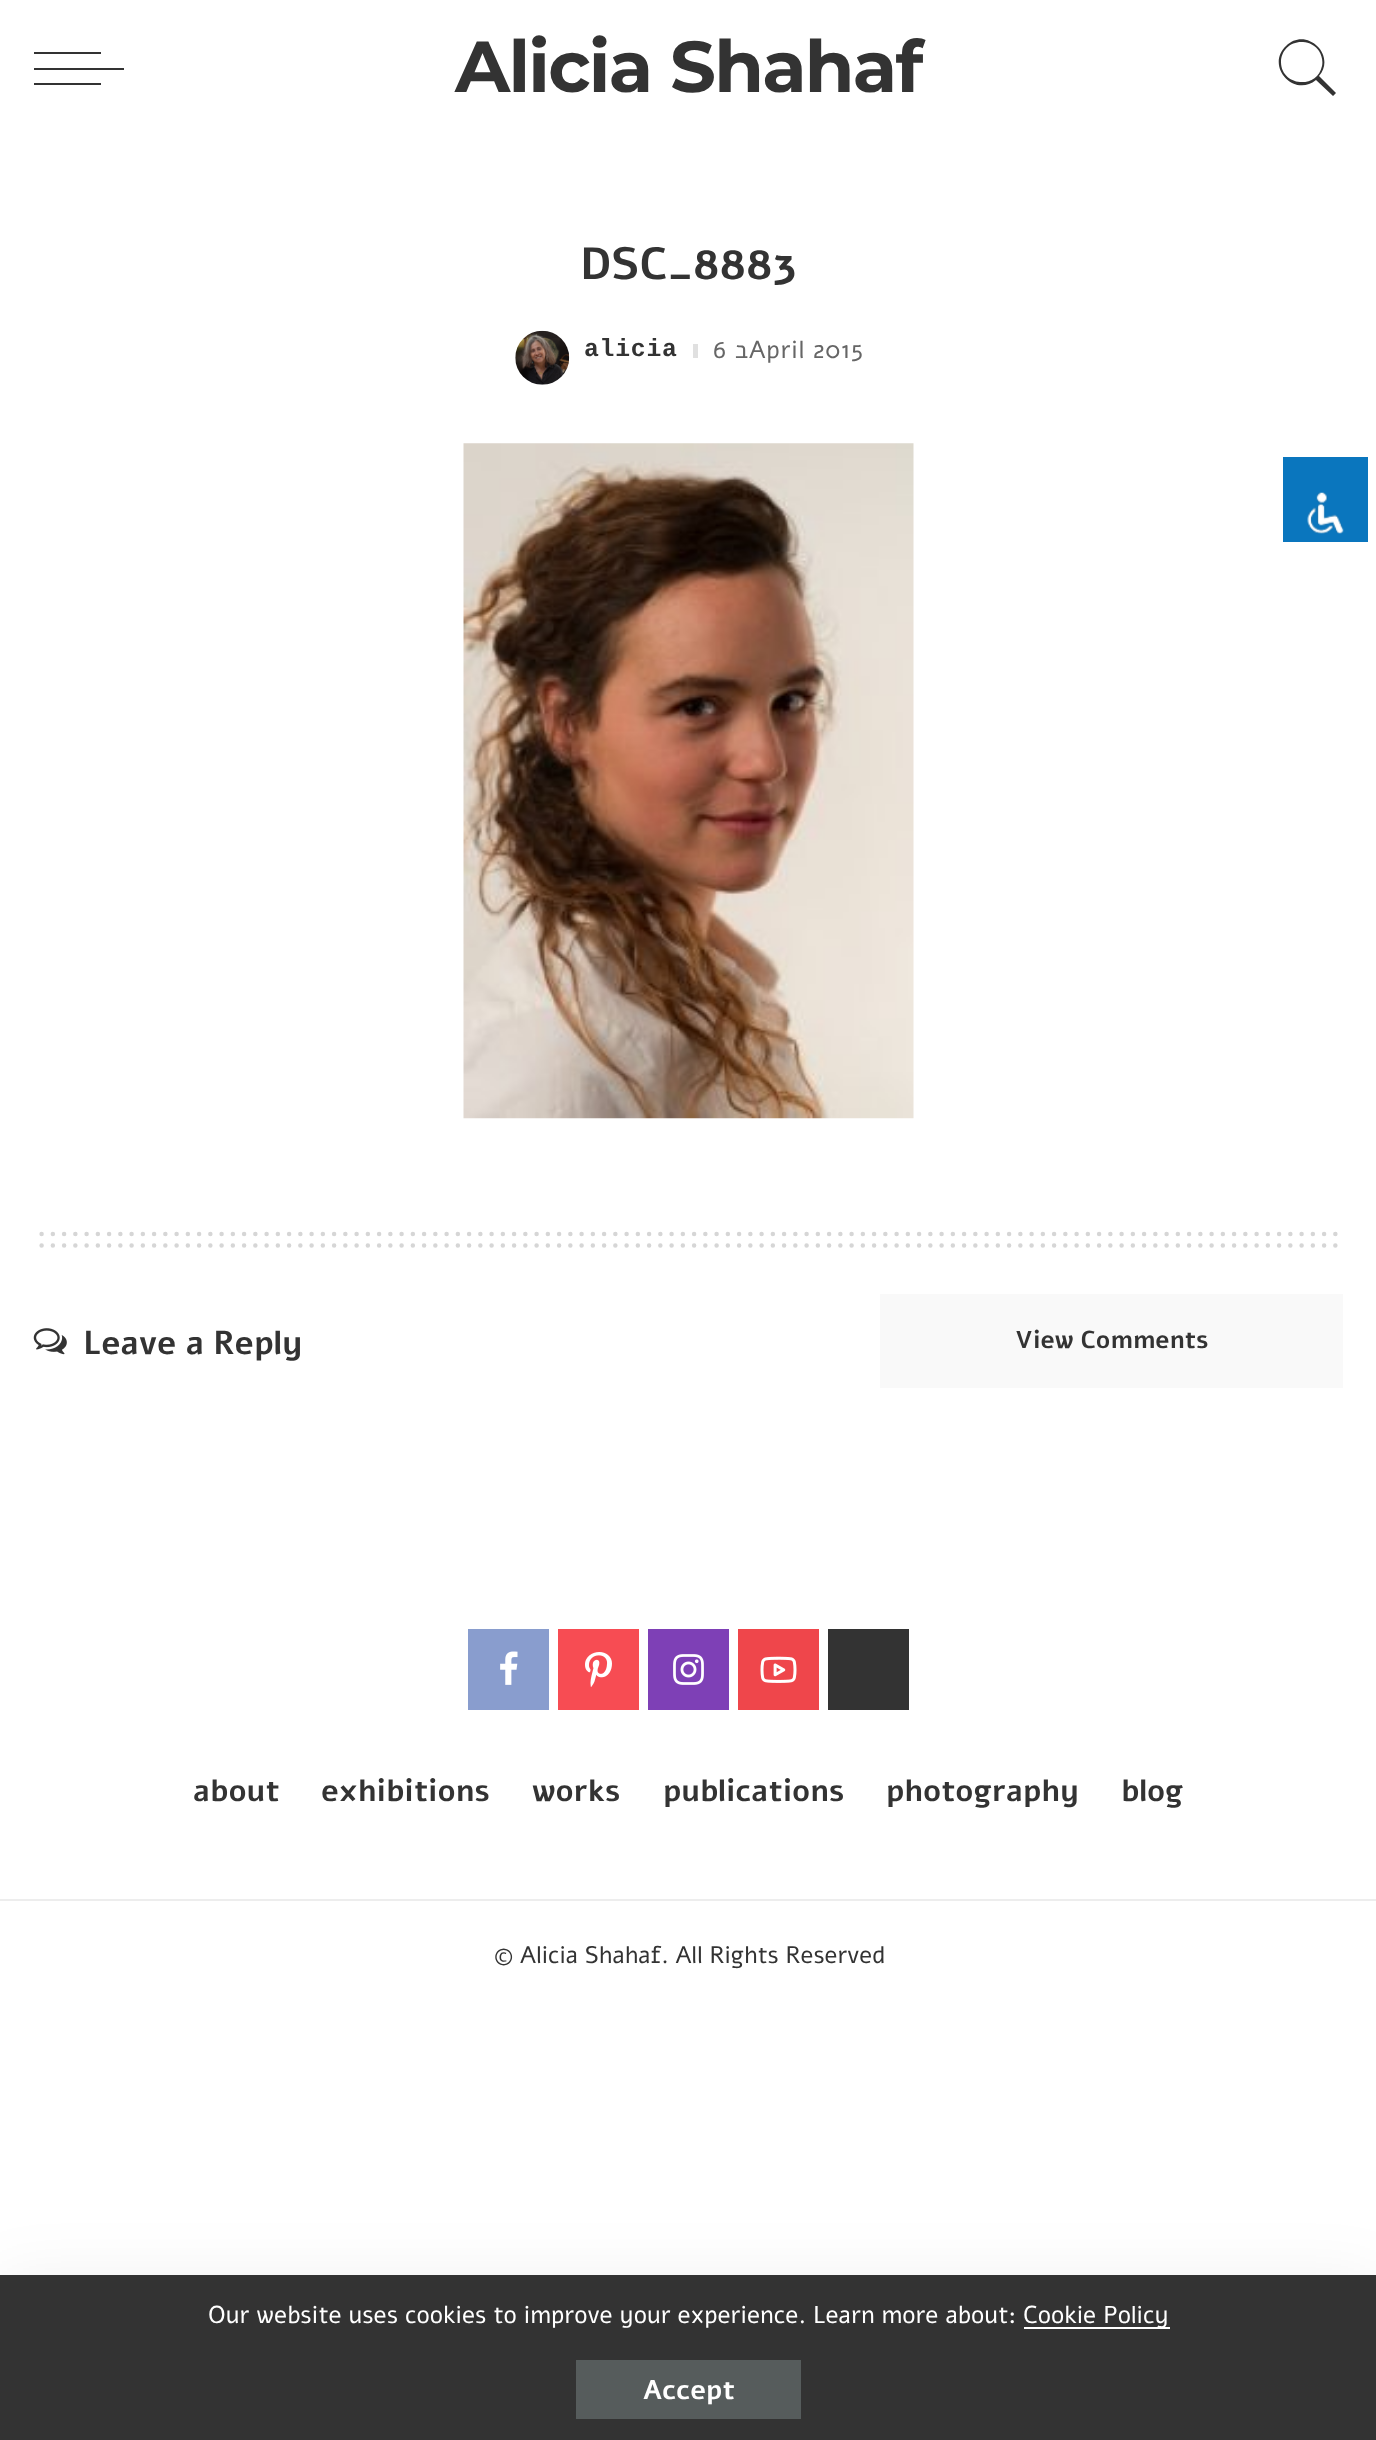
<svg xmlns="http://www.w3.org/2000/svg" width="1376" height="2440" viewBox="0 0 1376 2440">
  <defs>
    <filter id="blur1" x="-50%" y="-200%" width="200%" height="500%"><feGaussianBlur stdDeviation="34"/></filter>
  </defs>
  <rect width="100%" height="100%" fill="#ffffff"/>
  <rect x="34" y="68" width="90" height="2" fill="#333333"/>
  <rect x="34" y="52" width="67" height="2" fill="#333333"/>
  <rect x="34" y="83" width="67" height="2" fill="#333333"/>
  <text x="455" y="92" font-family="Montserrat" font-size="72" font-weight="bold" letter-spacing="-1.75" fill="#333333">Alicia Shahaf</text>
  <path d="M1336 93L1319 76C1337 55 1306 26 1286 46C1265 66 1294 98 1316 80L1333 96ZM1281 62C1281 50 1291 41 1303 42C1309 42 1316 46 1319 51C1322 56 1323 61 1322 66C1317 90 1281 86 1281 62Z" fill="#333333"/>
  <text x="580" y="279" font-family="Alef" font-size="45" font-weight="bold" fill="#333333">DSC_8883</text>
  <image x="515" y="330" width="55" height="55" href="img1.png"/>
  <text x="584" y="356" font-family="Liberation Mono" font-size="24.75" font-weight="bold" letter-spacing="0.75" fill="#333333">alicia</text>
  <rect x="693" y="344" width="5" height="14" fill="#e0e0e0"/>
  <text x="713" y="358" font-family="Alef" font-size="24.75" letter-spacing="0.75" fill="#666666">6</text>
  <text x="749" y="358" font-family="Alef" font-size="24.75" letter-spacing="0.75" direction="rtl" fill="#666666">ב</text>
  <text x="749" y="358" font-family="Alef" font-size="24.75" letter-spacing="0.75" fill="#666666">April 2015</text>
  <image x="463" y="443" width="451" height="676" href="img2.png"/>
  <path d="M41.6 1234.1H1335.8" fill="none" stroke="#d6d6d6" stroke-width="4.5" stroke-linecap="round" stroke-dasharray="0 11.25"/>
  <path d="M41.6 1245.4H1335.8" fill="none" stroke="#d6d6d6" stroke-width="4.5" stroke-linecap="round" stroke-dasharray="0 11.25"/>
  <image x="33" y="1328" width="34" height="27" href="img3.png"/>
  <text x="83" y="1354" font-family="Alef" font-size="33" font-weight="bold" fill="#333333">Leave a Reply</text>
  <rect x="880" y="1294" width="463" height="94" fill="#f9f9f9"/>
  <text x="1015" y="1348" font-family="Alef" font-size="24.4" font-weight="bold" fill="#333333">View Comments</text>
  <rect x="468" y="1629" width="81" height="81" fill="#899dce"/>
  <image x="500" y="1651" width="18" height="34" href="img4.png"/>
  <rect x="558" y="1629" width="81" height="81" fill="#f74c53"/>
  <image x="585" y="1652" width="27" height="35" href="img5.png"/>
  <rect x="648" y="1629" width="81" height="81" fill="#7e40b6"/>
  <image x="673" y="1654" width="31" height="31" href="img6.png"/>
  <rect x="738" y="1629" width="81" height="81" fill="#ef464b"/>
  <image x="760" y="1656" width="37" height="27" href="img7.png"/>
  <rect x="828" y="1629" width="81" height="81" fill="#333333"/>
  <text x="193" y="1801" font-family="Alef" font-size="30.5" font-weight="bold" fill="#333333">about</text>
  <text x="321" y="1801" font-family="Alef" font-size="30.5" font-weight="bold" fill="#333333">exhibitions</text>
  <text x="532" y="1801" font-family="Alef" font-size="30.5" font-weight="bold" fill="#333333">works</text>
  <text x="663" y="1801" font-family="Alef" font-size="30.5" font-weight="bold" fill="#333333">publications</text>
  <text x="886" y="1801" font-family="Alef" font-size="30.5" font-weight="bold" fill="#333333">photography</text>
  <text x="1121" y="1801" font-family="Alef" font-size="30.5" font-weight="bold" fill="#333333">blog</text>
  <rect x="0" y="1899" width="1376" height="2" fill="#ededed"/>
  <text x="494" y="1963" font-family="Alef" font-size="24" fill="#333333">© Alicia Shahaf. All Rights Reserved</text>
  <rect x="0" y="2284" width="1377" height="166" fill="#000000" fill-opacity="0.07" filter="url(#blur1)"/>
  <rect x="0" y="2275" width="1376" height="165" fill="#333333"/>
  <text x="208" y="2323" font-family="Alef" font-size="24.4" fill="#ffffff">Our website uses cookies to improve your experience. Learn more about:</text>
  <rect x="1024" y="2327" width="146" height="2" fill="#ffffff"/>
  <text x="1023" y="2323" font-family="Alef" font-size="24.4" fill="#ffffff">Cookie Policy</text>
  <rect x="576" y="2360" width="225" height="59" fill="#565c5c"/>
  <text x="643" y="2399" font-family="Alef" font-size="27" font-weight="bold" fill="#ffffff">Accept</text>
  <rect x="1279.5" y="453.5" width="92" height="92" rx="1.5" fill="#0a76be" stroke="#ffffff" stroke-width="7"/>
  <image x="1307" y="492" width="37" height="42" href="img8.png"/>
</svg>
